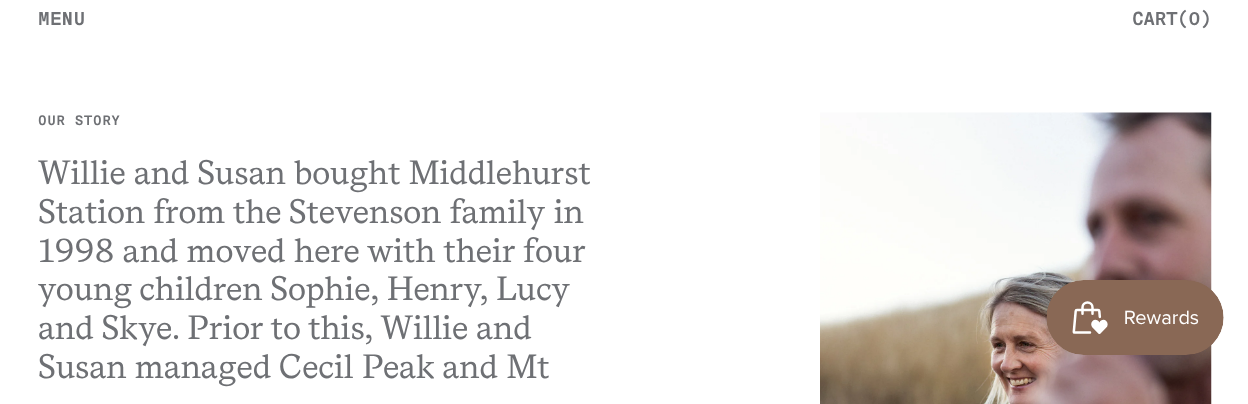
<svg xmlns="http://www.w3.org/2000/svg" width="1248" height="404" viewBox="0 0 1248 404">
  <rect width="100%" height="100%" fill="#ffffff"/>
  <text x="38" y="25" font-family="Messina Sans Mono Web" font-size="18.75" font-weight="bold" fill="#6e7074">MENU</text>
  <text x="1132" y="25" font-family="Messina Sans Mono Web" font-size="18.75" font-weight="bold" letter-spacing="-0.5" fill="#6e7074">CART(0)</text>
  <text x="38" y="125" font-family="Messina Sans Mono Web" font-size="13.75" font-weight="bold" letter-spacing="0.5" fill="#6e7074">OUR STORY</text>
  <text x="38" y="184" font-family="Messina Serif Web" font-size="33.75" letter-spacing="-0.15" fill="#6e7074">Willie and Susan bought Middlehurst</text>
  <text x="38" y="223" font-family="Messina Serif Web" font-size="33.75" letter-spacing="-0.15" fill="#6e7074">Station from the Stevenson family in</text>
  <text x="38" y="262" font-family="Messina Serif Web" font-size="33.75" letter-spacing="-0.15" fill="#6e7074">1998 and moved here with their four</text>
  <text x="38" y="300" font-family="Messina Serif Web" font-size="33.75" letter-spacing="-0.15" fill="#6e7074">young children Sophie, Henry, Lucy</text>
  <text x="38" y="339" font-family="Messina Serif Web" font-size="33.75" letter-spacing="-0.15" fill="#6e7074">and Skye. Prior to this, Willie and</text>
  <text x="38" y="378" font-family="Messina Serif Web" font-size="33.75" letter-spacing="-0.15" fill="#6e7074">Susan managed Cecil Peak and Mt</text>
  <image x="820" y="112" width="392" height="292" href="img1.png"/>
  <image x="1046" y="280" width="178" height="75" href="img2.png"/>
</svg>
